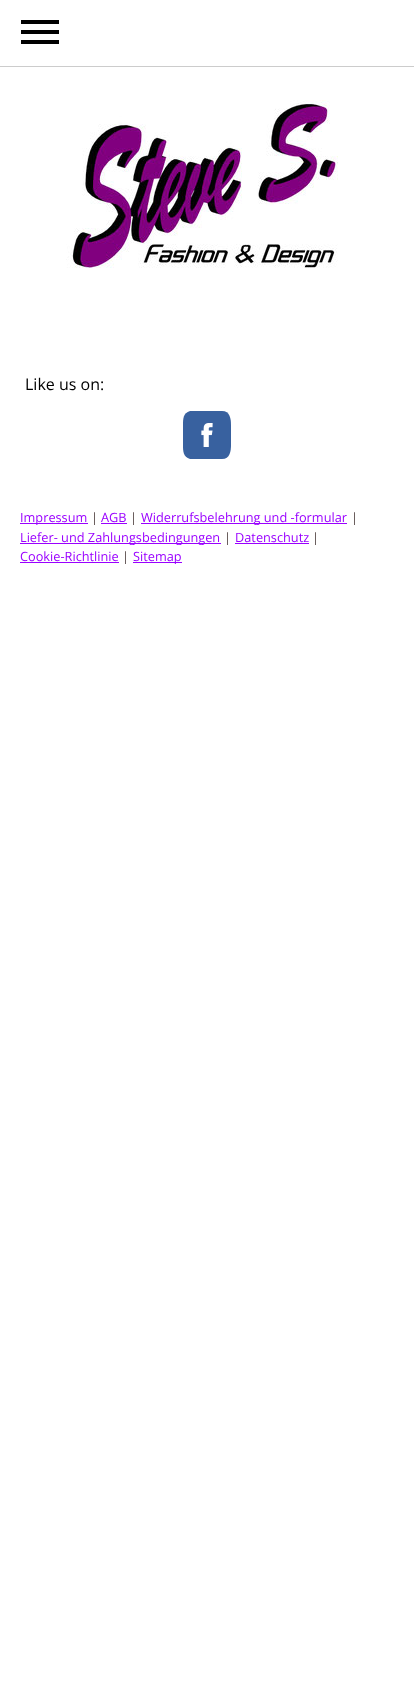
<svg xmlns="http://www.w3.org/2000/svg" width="414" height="1699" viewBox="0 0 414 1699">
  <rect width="100%" height="100%" fill="#ffffff"/>
  <rect x="21" y="30" width="38" height="4" fill="#000000"/>
  <rect x="21" y="20" width="38" height="4" fill="#000000"/>
  <rect x="21" y="40" width="38" height="4" fill="#000000"/>
  <rect x="0" y="66" width="414" height="1" fill="#cccccc"/>
  <image x="66" y="100" width="272" height="168" href="img1.png"/>
  <text x="25" y="390" font-family="Open Sans" font-size="16" fill="#000000">Like us on:</text>
  <path d="M222 459H190C183 457 183 451 183 445V425C183 419 183 413 190 411H222C230 411 231 419 231 425V445C231 451 230 459 222 459Z" fill="#38619f"/>
  <image x="201" y="423" width="12" height="24" href="img2.png"/>
  <rect x="20" y="523" width="68" height="1" fill="#9a00ff"/>
  <text x="20" y="522" font-family="Open Sans" font-size="12.75" fill="#9a00ff">Impressum</text>
  <text x="91" y="522" font-family="Open Sans" font-size="12.75" fill="#544645">|</text>
  <text x="101" y="522" font-family="Open Sans" font-size="12.75" fill="#9a00ff">AGB</text>
  <rect x="101" y="523" width="26" height="1" fill="#9a00ff"/>
  <text x="130" y="522" font-family="Open Sans" font-size="12.75" fill="#544645">|</text>
  <rect x="141" y="523" width="206" height="1" fill="#9a00ff"/>
  <text x="141" y="522" font-family="Open Sans" font-size="12.75" fill="#9a00ff">Widerrufsbelehrung und -formular</text>
  <text x="351" y="522" font-family="Open Sans" font-size="12.75" fill="#544645">|</text>
  <rect x="20" y="543" width="201" height="1" fill="#9a00ff"/>
  <text x="20" y="542" font-family="Open Sans" font-size="12.75" fill="#9a00ff">Liefer- und Zahlungsbedingungen</text>
  <text x="224" y="542" font-family="Open Sans" font-size="12.75" fill="#544645">|</text>
  <text x="235" y="542" font-family="Open Sans" font-size="12.75" fill="#9a00ff">Datenschutz</text>
  <rect x="235" y="543" width="74" height="1" fill="#9a00ff"/>
  <text x="312" y="542" font-family="Open Sans" font-size="12.75" fill="#544645">|</text>
  <text x="20" y="561" font-family="Open Sans" font-size="12.75" fill="#9a00ff">Cookie-Richtlinie</text>
  <rect x="20" y="562" width="99" height="1" fill="#9a00ff"/>
  <text x="122" y="561" font-family="Open Sans" font-size="12.75" fill="#544645">|</text>
  <rect x="133" y="562" width="49" height="1" fill="#9a00ff"/>
  <text x="133" y="561" font-family="Open Sans" font-size="12.75" fill="#9a00ff">Sitemap</text>
</svg>
